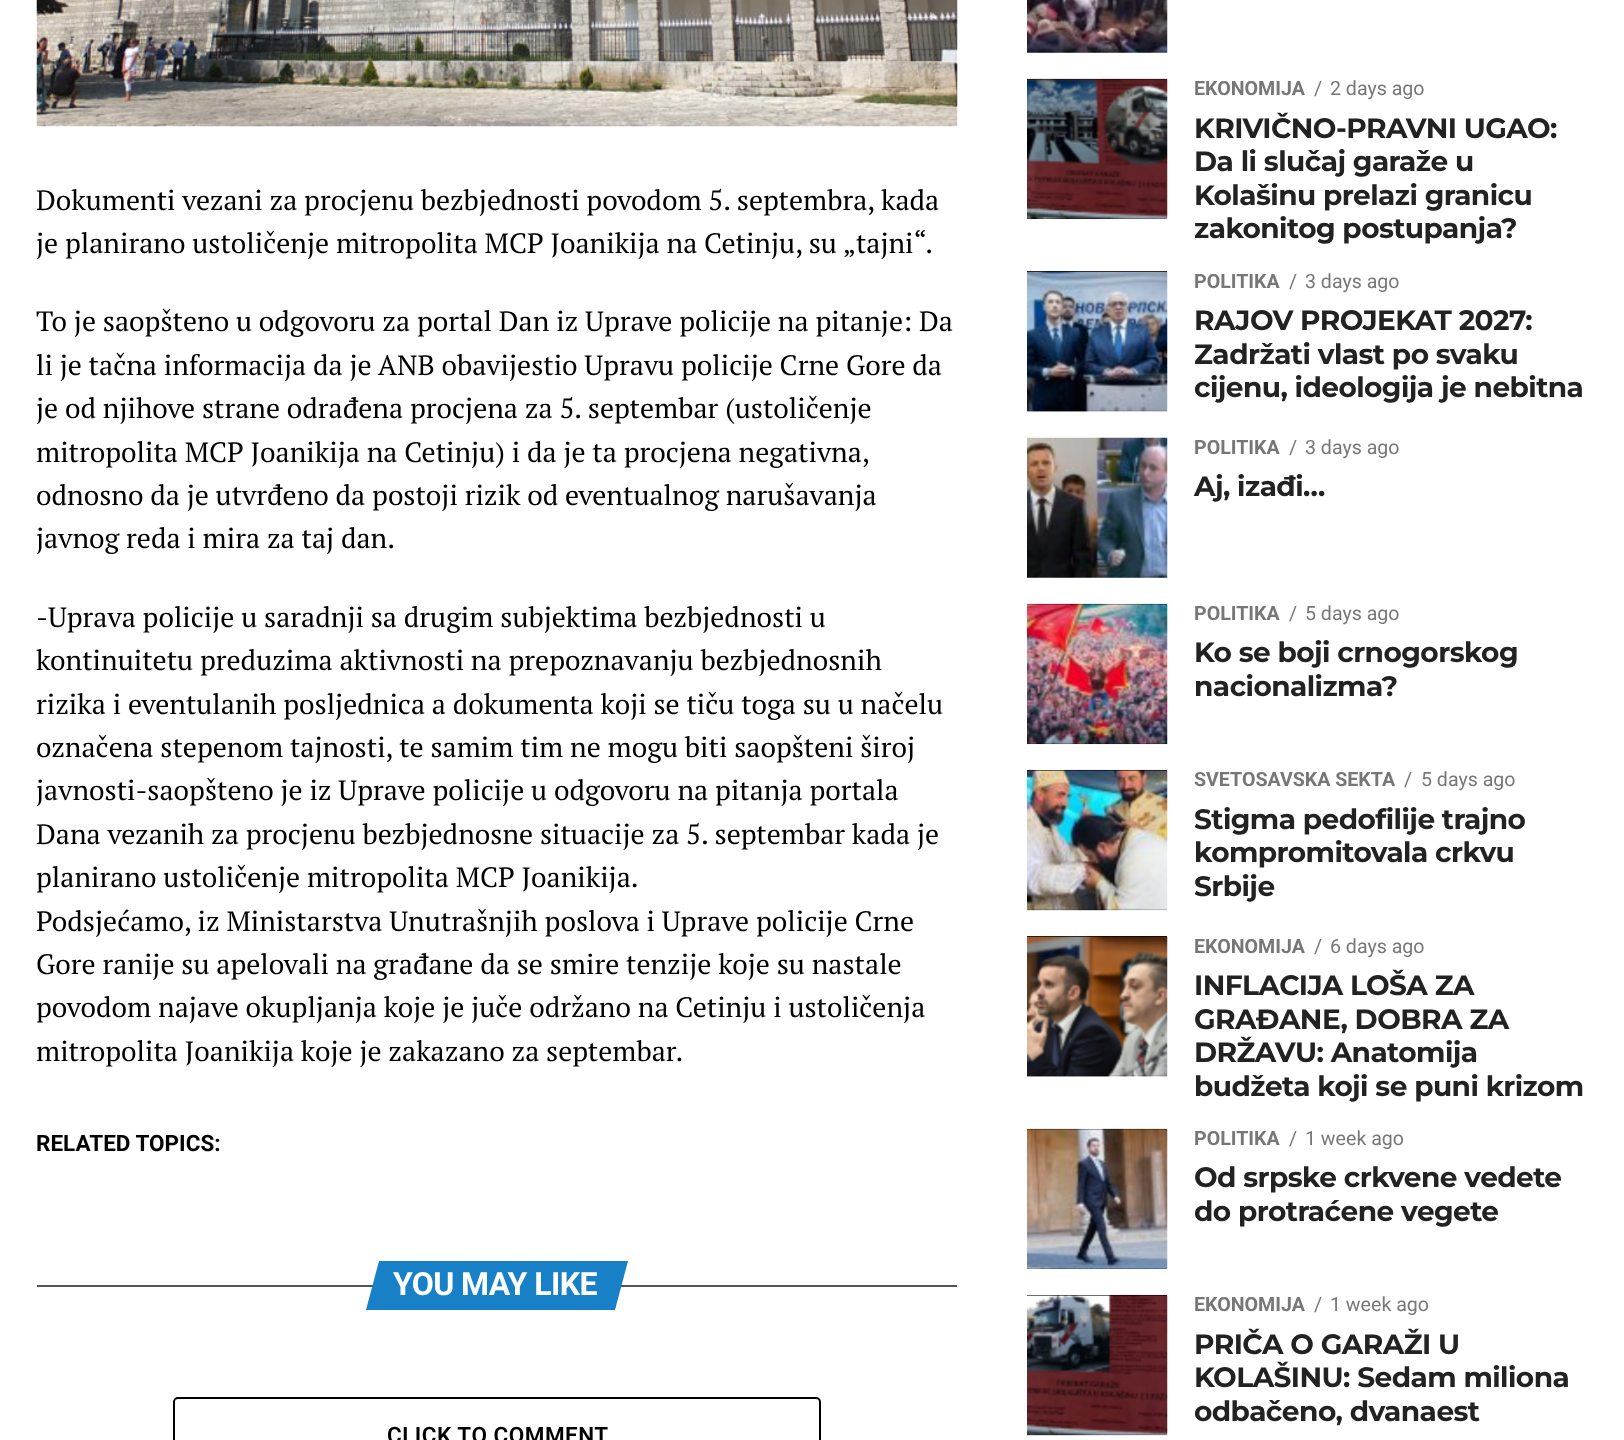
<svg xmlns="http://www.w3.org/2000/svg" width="1624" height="1440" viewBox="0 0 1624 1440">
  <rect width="100%" height="100%" fill="#ffffff"/>
  <image x="36" y="0" width="922" height="127" href="img1.png"/>
  <text x="36" y="210" font-family="PT Serif" font-size="28" fill="#000000">Dokumenti vezani za procjenu bezbjednosti povodom 5. septembra, kada</text>
  <text x="36" y="253" font-family="PT Serif" font-size="28" fill="#000000">je planirano ustoličenje mitropolita MCP Joanikija na Cetinju, su „tajni“.</text>
  <text x="36" y="331" font-family="PT Serif" font-size="28" fill="#000000">To je saopšteno u odgovoru za portal Dan iz Uprave policije na pitanje: Da</text>
  <text x="36" y="375" font-family="PT Serif" font-size="28" fill="#000000">li je tačna informacija da je ANB obavijestio Upravu policije Crne Gore da</text>
  <text x="36" y="418" font-family="PT Serif" font-size="28" fill="#000000">je od njihove strane odrađena procjena za 5. septembar (ustoličenje</text>
  <text x="36" y="462" font-family="PT Serif" font-size="28" fill="#000000">mitropolita MCP Joanikija na Cetinju) i da je ta procjena negativna,</text>
  <text x="36" y="505" font-family="PT Serif" font-size="28" fill="#000000">odnosno da je utvrđeno da postoji rizik od eventualnog narušavanja</text>
  <text x="36" y="548" font-family="PT Serif" font-size="28" fill="#000000">javnog reda i mira za taj dan.</text>
  <text x="36" y="627" font-family="PT Serif" font-size="28" fill="#000000">-Uprava policije u saradnji sa drugim subjektima bezbjednosti u</text>
  <text x="36" y="670" font-family="PT Serif" font-size="28" fill="#000000">kontinuitetu preduzima aktivnosti na prepoznavanju bezbjednosnih</text>
  <text x="36" y="714" font-family="PT Serif" font-size="28" fill="#000000">rizika i eventulanih posljednica a dokumenta koji se tiču toga su u načelu</text>
  <text x="36" y="757" font-family="PT Serif" font-size="28" fill="#000000">označena stepenom tajnosti, te samim tim ne mogu biti saopšteni široj</text>
  <text x="36" y="800" font-family="PT Serif" font-size="28" fill="#000000">javnosti-saopšteno je iz Uprave policije u odgovoru na pitanja portala</text>
  <text x="36" y="844" font-family="PT Serif" font-size="28" fill="#000000">Dana vezanih za procjenu bezbjednosne situacije za 5. septembar kada je</text>
  <text x="36" y="887" font-family="PT Serif" font-size="28" fill="#000000">planirano ustoličenje mitropolita MCP Joanikija.</text>
  <text x="36" y="931" font-family="PT Serif" font-size="28" fill="#000000">Podsjećamo, iz Ministarstva Unutrašnjih poslova i Uprave policije Crne</text>
  <text x="36" y="974" font-family="PT Serif" font-size="28" fill="#000000">Gore ranije su apelovali na građane da se smire tenzije koje su nastale</text>
  <text x="36" y="1017" font-family="PT Serif" font-size="28" fill="#000000">povodom najave okupljanja koje je juče održano na Cetinju i ustoličenja</text>
  <text x="36" y="1061" font-family="PT Serif" font-size="28" fill="#000000">mitropolita Joanikija koje je zakazano za septembar.</text>
  <text x="36" y="1151" font-family="Roboto" font-size="22.5" font-weight="bold" fill="#000000">RELATED TOPICS:</text>
  <rect x="37" y="1285" width="920" height="2" fill="#555555"/>
  <path d="M379 1261H628L615 1310H366Z" fill="#1780c7"/>
  <text x="393" y="1295" font-family="Roboto" font-size="32" font-weight="bold" letter-spacing="-0.6" fill="#ffffff">YOU MAY LIKE</text>
  <rect x="174" y="1398" width="646" height="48" rx="4" fill="none" stroke="#000000" stroke-width="2"/>
  <text x="387" y="1443" font-family="Roboto" font-size="22.5" font-weight="600" letter-spacing="0.5" fill="#000000">CLICK TO COMMENT</text>
  <image x="1027" y="0" width="141" height="53" href="img2.png"/>
  <rect x="1027" y="79" width="140" height="140" fill="#000000"/>
  <image x="1027" y="78" width="141" height="142" href="img3.png"/>
  <text x="1194" y="95" font-family="Roboto" font-size="19.6" font-weight="bold" fill="#777777">EKONOMIJA</text>
  <text x="1314" y="95" font-family="Roboto" font-size="19.6" fill="#777777">/</text>
  <text x="1330" y="95" font-family="Roboto" font-size="19.6" fill="#777777">2 days ago</text>
  <text x="1194" y="138" font-family="Montserrat" font-size="28" font-weight="bold" letter-spacing="-0.55" fill="#222222">KRIVIČNO-PRAVNI UGAO:</text>
  <text x="1194" y="171" font-family="Montserrat" font-size="28" font-weight="bold" letter-spacing="-0.55" fill="#222222">Da li slučaj garaže u</text>
  <text x="1194" y="205" font-family="Montserrat" font-size="28" font-weight="bold" letter-spacing="-0.55" fill="#222222">Kolašinu prelazi granicu</text>
  <text x="1194" y="238" font-family="Montserrat" font-size="28" font-weight="bold" letter-spacing="-0.55" fill="#222222">zakonitog postupanja?</text>
  <rect x="1027" y="271" width="140" height="140" fill="#000000"/>
  <image x="1027" y="271" width="141" height="141" href="img4.png"/>
  <text x="1194" y="288" font-family="Roboto" font-size="19.6" font-weight="bold" fill="#777777">POLITIKA</text>
  <text x="1289" y="288" font-family="Roboto" font-size="19.6" fill="#777777">/</text>
  <text x="1305" y="288" font-family="Roboto" font-size="19.6" fill="#777777">3 days ago</text>
  <text x="1194" y="330" font-family="Montserrat" font-size="28" font-weight="bold" letter-spacing="-0.55" fill="#222222">RAJOV PROJEKAT 2027:</text>
  <text x="1194" y="364" font-family="Montserrat" font-size="28" font-weight="bold" letter-spacing="-0.55" fill="#222222">Zadržati vlast po svaku</text>
  <text x="1194" y="397" font-family="Montserrat" font-size="28" font-weight="bold" letter-spacing="-0.55" fill="#222222">cijenu, ideologija je nebitna</text>
  <image x="1027" y="437" width="141" height="141" href="img5.png"/>
  <text x="1194" y="454" font-family="Roboto" font-size="19.6" font-weight="bold" fill="#777777">POLITIKA</text>
  <text x="1289" y="454" font-family="Roboto" font-size="19.6" fill="#777777">/</text>
  <text x="1305" y="454" font-family="Roboto" font-size="19.6" fill="#777777">3 days ago</text>
  <text x="1194" y="496" font-family="Montserrat" font-size="28" font-weight="bold" letter-spacing="-0.55" fill="#222222">Aj, izađi…</text>
  <rect x="1027" y="604" width="140" height="140" fill="#000000"/>
  <image x="1027" y="603" width="141" height="142" href="img6.png"/>
  <text x="1194" y="620" font-family="Roboto" font-size="19.6" font-weight="bold" fill="#777777">POLITIKA</text>
  <text x="1289" y="620" font-family="Roboto" font-size="19.6" fill="#777777">/</text>
  <text x="1305" y="620" font-family="Roboto" font-size="19.6" fill="#777777">5 days ago</text>
  <text x="1194" y="662" font-family="Montserrat" font-size="28" font-weight="bold" letter-spacing="-0.55" fill="#222222">Ko se boji crnogorskog</text>
  <text x="1194" y="696" font-family="Montserrat" font-size="28" font-weight="bold" letter-spacing="-0.55" fill="#222222">nacionalizma?</text>
  <rect x="1027" y="770" width="140" height="140" fill="#000000"/>
  <image x="1027" y="769" width="141" height="142" href="img7.png"/>
  <text x="1194" y="786" font-family="Roboto" font-size="19.6" font-weight="bold" fill="#777777">SVETOSAVSKA SEKTA</text>
  <text x="1404" y="786" font-family="Roboto" font-size="19.6" fill="#777777">/</text>
  <text x="1421" y="786" font-family="Roboto" font-size="19.6" fill="#777777">5 days ago</text>
  <text x="1194" y="829" font-family="Montserrat" font-size="28" font-weight="bold" letter-spacing="-0.55" fill="#222222">Stigma pedofilije trajno</text>
  <text x="1194" y="862" font-family="Montserrat" font-size="28" font-weight="bold" letter-spacing="-0.55" fill="#222222">kompromitovala crkvu</text>
  <text x="1194" y="896" font-family="Montserrat" font-size="28" font-weight="bold" letter-spacing="-0.55" fill="#222222">Srbije</text>
  <rect x="1027" y="936" width="140" height="140" fill="#000000"/>
  <image x="1027" y="936" width="141" height="141" href="img8.png"/>
  <text x="1194" y="953" font-family="Roboto" font-size="19.6" font-weight="bold" fill="#777777">EKONOMIJA</text>
  <text x="1314" y="953" font-family="Roboto" font-size="19.6" fill="#777777">/</text>
  <text x="1330" y="953" font-family="Roboto" font-size="19.6" fill="#777777">6 days ago</text>
  <text x="1194" y="995" font-family="Montserrat" font-size="28" font-weight="bold" letter-spacing="-0.55" fill="#222222">INFLACIJA LOŠA ZA</text>
  <text x="1194" y="1029" font-family="Montserrat" font-size="28" font-weight="bold" letter-spacing="-0.55" fill="#222222">GRAĐANE, DOBRA ZA</text>
  <text x="1194" y="1062" font-family="Montserrat" font-size="28" font-weight="bold" letter-spacing="-0.55" fill="#222222">DRŽAVU: Anatomija</text>
  <text x="1194" y="1096" font-family="Montserrat" font-size="28" font-weight="bold" letter-spacing="-0.55" fill="#222222">budžeta koji se puni krizom</text>
  <rect x="1027" y="1129" width="140" height="140" fill="#000000"/>
  <image x="1027" y="1128" width="141" height="142" href="img9.png"/>
  <text x="1194" y="1145" font-family="Roboto" font-size="19.6" font-weight="bold" fill="#777777">POLITIKA</text>
  <text x="1289" y="1145" font-family="Roboto" font-size="19.6" fill="#777777">/</text>
  <text x="1305" y="1145" font-family="Roboto" font-size="19.6" fill="#777777">1 week ago</text>
  <text x="1194" y="1187" font-family="Montserrat" font-size="28" font-weight="bold" letter-spacing="-0.55" fill="#222222">Od srpske crkvene vedete</text>
  <text x="1194" y="1221" font-family="Montserrat" font-size="28" font-weight="bold" letter-spacing="-0.55" fill="#222222">do protraćene vegete</text>
  <rect x="1027" y="1295" width="140" height="140" fill="#000000"/>
  <image x="1027" y="1294" width="141" height="142" href="img10.png"/>
  <text x="1194" y="1311" font-family="Roboto" font-size="19.6" font-weight="bold" fill="#777777">EKONOMIJA</text>
  <text x="1314" y="1311" font-family="Roboto" font-size="19.6" fill="#777777">/</text>
  <text x="1330" y="1311" font-family="Roboto" font-size="19.6" fill="#777777">1 week ago</text>
  <text x="1194" y="1354" font-family="Montserrat" font-size="28" font-weight="bold" letter-spacing="-0.55" fill="#222222">PRIČA O GARAŽI U</text>
  <text x="1194" y="1387" font-family="Montserrat" font-size="28" font-weight="bold" letter-spacing="-0.55" fill="#222222">KOLAŠINU: Sedam miliona</text>
  <text x="1194" y="1421" font-family="Montserrat" font-size="28" font-weight="bold" letter-spacing="-0.55" fill="#222222">odbačeno, dvanaest</text>
</svg>
